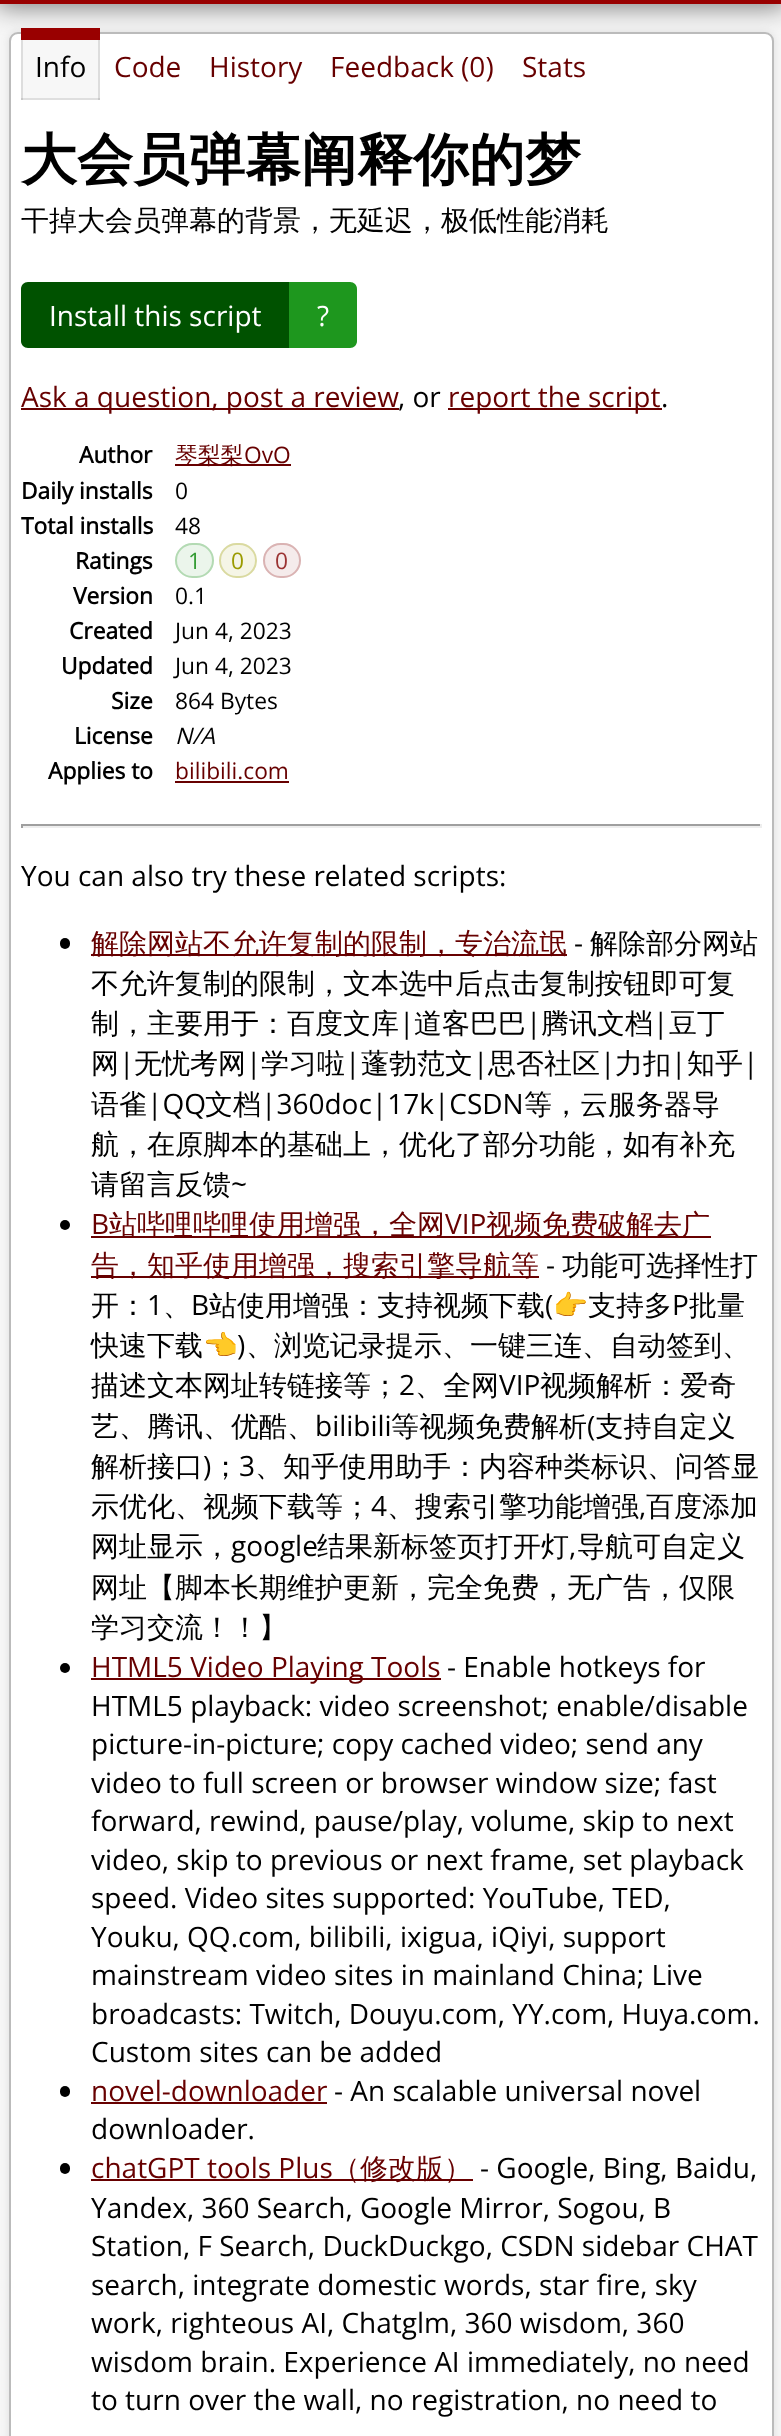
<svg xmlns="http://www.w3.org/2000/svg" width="781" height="2436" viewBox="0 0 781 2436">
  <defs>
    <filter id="blur1" x="-50%" y="-200%" width="200%" height="500%"><feGaussianBlur stdDeviation="13"/></filter>
    <linearGradient id="g1" gradientUnits="userSpaceOnUse" x1="391" y1="-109" x2="391" y2="3.5"><stop offset="0" stop-color="#670000"/><stop offset="1" stop-color="#990000"/></linearGradient>
    <filter id="blur2" x="-50%" y="-200%" width="200%" height="500%"><feGaussianBlur stdDeviation="4.5"/></filter>
  </defs>
  <rect width="100%" height="100%" fill="#f6f6f6"/>
  <rect x="-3" y="-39" width="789" height="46" fill="#000000" fill-opacity="0.5" filter="url(#blur1)"/>
  <rect x="0" y="0" width="781" height="4" fill="url(#g1)"/>
  <rect x="9" y="32" width="765" height="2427" rx="9" fill="#dddddd" filter="url(#blur2)"/>
  <rect x="10" y="33" width="763" height="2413" rx="8" fill="#ffffff" stroke="#bbbbbb" stroke-width="2"/>
  <rect x="21" y="40" width="79" height="58" fill="#000000" fill-opacity="0.03"/>
  <rect x="21" y="98" width="79" height="2" fill="#dfdfdf"/>
  <rect x="98" y="40" width="2" height="60" fill="#000000" fill-opacity="0.1"/>
  <rect x="21" y="40" width="2" height="60" fill="#000000" fill-opacity="0.1"/>
  <rect x="21" y="28" width="79" height="12" fill="#990000"/>
  <text x="35" y="77" font-family="Open Sans" font-size="28" fill="#000000">Info</text>
  <text x="114" y="77" font-family="Open Sans" font-size="28" fill="#670000">Code</text>
  <text x="209" y="77" font-family="Open Sans" font-size="28" fill="#670000">History</text>
  <text x="330" y="77" font-family="Open Sans" font-size="28" fill="#670000">Feedback (0)</text>
  <text x="522" y="77" font-family="Open Sans" font-size="28" fill="#670000">Stats</text>
  <text x="21" y="179" font-family="WenQuanYi Zen Hei" font-size="56" font-weight="bold" fill="#000000">大会员弹幕阐释你的梦</text>
  <text x="21" y="230" font-family="WenQuanYi Zen Hei" font-size="28" font-weight="500" fill="#000000">干掉大会员弹幕的背景，无延迟，极低性能消耗</text>
  <path d="M28 282H289V348H28C24 348 21 345 21 341V289C21 285 24 282 28 282Z" fill="#005200"/>
  <text x="49" y="326" font-family="Open Sans" font-size="28" fill="#ffffff">Install this script</text>
  <path d="M289 282H350C354 282 357 285 357 289V341C357 345 354 348 350 348H289Z" fill="#1e971e"/>
  <text x="317" y="326" font-family="Open Sans" font-size="28" fill="#ffffff">?</text>
  <rect x="21" y="408" width="378" height="2" fill="#670000"/>
  <text x="21" y="407" font-family="Open Sans" font-size="28" fill="#670000">Ask a question, post a review</text>
  <text x="398" y="407" font-family="Open Sans" font-size="28" fill="#000000">, or</text>
  <rect x="448" y="408" width="214" height="2" fill="#670000"/>
  <text x="448" y="407" font-family="Open Sans" font-size="28" fill="#670000">report the script</text>
  <text x="661" y="407" font-family="Open Sans" font-size="28" fill="#000000">.</text>
  <text x="79" y="463" font-family="Open Sans" font-size="22.75" font-weight="bold" fill="#000000">Author</text>
  <rect x="175" y="464" width="116" height="2" fill="#670000"/>
  <text x="175" y="463" font-family="WenQuanYi Zen Hei" font-size="22.75" font-weight="500" fill="#670000">琴梨梨</text>
  <text x="244" y="463" font-family="Open Sans" font-size="22.75" fill="#670000">OvO</text>
  <text x="21" y="499" font-family="Open Sans" font-size="22.75" font-weight="bold" fill="#000000">Daily installs</text>
  <text x="175" y="499" font-family="Open Sans" font-size="22.75" fill="#000000">0</text>
  <text x="21" y="534" font-family="Open Sans" font-size="22.75" font-weight="bold" fill="#000000">Total installs</text>
  <text x="175" y="534" font-family="Open Sans" font-size="22.75" fill="#000000">48</text>
  <text x="75" y="569" font-family="Open Sans" font-size="22.75" font-weight="bold" fill="#000000">Ratings</text>
  <rect x="175" y="543" width="39" height="35" rx="17.5" fill="#ebf5eb"/>
  <rect x="176" y="544" width="37" height="33" rx="16.5" fill="none" stroke="#339b33" stroke-opacity="0.3" stroke-width="2"/>
  <text x="188" y="569" font-family="Open Sans" font-size="22.75" fill="#339b33">1</text>
  <rect x="219" y="543" width="38" height="35" rx="17.5" fill="#f5f5e6"/>
  <rect x="220" y="544" width="36" height="33" rx="16.5" fill="none" stroke="#9b9b00" stroke-opacity="0.3" stroke-width="2"/>
  <text x="231" y="569" font-family="Open Sans" font-size="22.75" fill="#9b9b00">0</text>
  <rect x="263" y="543" width="38" height="35" rx="17.5" fill="#f5ebeb"/>
  <rect x="264" y="544" width="36" height="33" rx="16.5" fill="none" stroke="#9b3333" stroke-opacity="0.3" stroke-width="2"/>
  <text x="275" y="569" font-family="Open Sans" font-size="22.75" fill="#9b3333">0</text>
  <text x="73" y="604" font-family="Open Sans" font-size="22.75" font-weight="bold" fill="#000000">Version</text>
  <text x="175" y="604" font-family="Open Sans" font-size="22.75" fill="#000000">0.1</text>
  <text x="69" y="639" font-family="Open Sans" font-size="22.75" font-weight="bold" fill="#000000">Created</text>
  <text x="175" y="639" font-family="Open Sans" font-size="22.75" fill="#000000">Jun 4, 2023</text>
  <text x="61" y="674" font-family="Open Sans" font-size="22.75" font-weight="bold" fill="#000000">Updated</text>
  <text x="175" y="674" font-family="Open Sans" font-size="22.75" fill="#000000">Jun 4, 2023</text>
  <text x="111" y="709" font-family="Open Sans" font-size="22.75" font-weight="bold" fill="#000000">Size</text>
  <text x="175" y="709" font-family="Open Sans" font-size="22.75" fill="#000000">864 Bytes</text>
  <text x="74" y="744" font-family="Open Sans" font-size="22.75" font-weight="bold" fill="#000000">License</text>
  <text x="175" y="744" font-family="Open Sans" font-size="22.75" font-style="italic" fill="#000000">N/A</text>
  <text x="48" y="779" font-family="Open Sans" font-size="22.75" font-weight="bold" fill="#000000">Applies to</text>
  <text x="175" y="779" font-family="Open Sans" font-size="22.75" fill="#670000">bilibili.com</text>
  <rect x="175" y="781" width="114" height="2" fill="#670000"/>
  <rect x="21" y="824" width="740" height="2" fill="#9f9f9f"/>
  <rect x="760" y="824" width="2" height="4" fill="#eeeeee"/>
  <rect x="21" y="826" width="740" height="2" fill="#eeeeee"/>
  <rect x="21" y="824" width="2" height="4" fill="#9f9f9f"/>
  <text x="21" y="886" font-family="Open Sans" font-size="28" fill="#000000">You can also try these related scripts:</text>
  <rect x="60" y="938" width="10" height="11" rx="5" fill="#000000"/>
  <rect x="91" y="954" width="476" height="2" fill="#670000"/>
  <text x="91" y="953" font-family="WenQuanYi Zen Hei" font-size="28" font-weight="500" fill="#670000">解除网站不允许复制的限制，专治流氓</text>
  <text x="574" y="953" font-family="Open Sans" font-size="28" fill="#000000">-</text>
  <text x="590" y="953" font-family="WenQuanYi Zen Hei" font-size="28" font-weight="500" fill="#000000">解除部分网站</text>
  <text x="91" y="993" font-family="WenQuanYi Zen Hei" font-size="28" font-weight="500" fill="#000000">不允许复制的限制，文本选中后点击复制按钮即可复</text>
  <text x="91" y="1033" font-family="WenQuanYi Zen Hei" font-size="28" font-weight="500" fill="#000000">制，主要用于：百度文库</text>
  <text x="399" y="1033" font-family="Open Sans" font-size="28" fill="#000000">|</text>
  <text x="414" y="1033" font-family="WenQuanYi Zen Hei" font-size="28" font-weight="500" fill="#000000">道客巴巴</text>
  <text x="526" y="1033" font-family="Open Sans" font-size="28" fill="#000000">|</text>
  <text x="541" y="1033" font-family="WenQuanYi Zen Hei" font-size="28" font-weight="500" fill="#000000">腾讯文档</text>
  <text x="653" y="1033" font-family="Open Sans" font-size="28" fill="#000000">|</text>
  <text x="669" y="1033" font-family="WenQuanYi Zen Hei" font-size="28" font-weight="500" fill="#000000">豆丁</text>
  <text x="91" y="1073" font-family="WenQuanYi Zen Hei" font-size="28" font-weight="500" fill="#000000">网</text>
  <text x="119" y="1073" font-family="Open Sans" font-size="28" fill="#000000">|</text>
  <text x="134" y="1073" font-family="WenQuanYi Zen Hei" font-size="28" font-weight="500" fill="#000000">无忧考网</text>
  <text x="246" y="1073" font-family="Open Sans" font-size="28" fill="#000000">|</text>
  <text x="261" y="1073" font-family="WenQuanYi Zen Hei" font-size="28" font-weight="500" fill="#000000">学习啦</text>
  <text x="345" y="1073" font-family="Open Sans" font-size="28" fill="#000000">|</text>
  <text x="361" y="1073" font-family="WenQuanYi Zen Hei" font-size="28" font-weight="500" fill="#000000">蓬勃范文</text>
  <text x="473" y="1073" font-family="Open Sans" font-size="28" fill="#000000">|</text>
  <text x="488" y="1073" font-family="WenQuanYi Zen Hei" font-size="28" font-weight="500" fill="#000000">思否社区</text>
  <text x="600" y="1073" font-family="Open Sans" font-size="28" fill="#000000">|</text>
  <text x="615" y="1073" font-family="WenQuanYi Zen Hei" font-size="28" font-weight="500" fill="#000000">力扣</text>
  <text x="671" y="1073" font-family="Open Sans" font-size="28" fill="#000000">|</text>
  <text x="687" y="1073" font-family="WenQuanYi Zen Hei" font-size="28" font-weight="500" fill="#000000">知乎</text>
  <text x="743" y="1073" font-family="Open Sans" font-size="28" fill="#000000">|</text>
  <text x="91" y="1114" font-family="WenQuanYi Zen Hei" font-size="28" font-weight="500" fill="#000000">语雀</text>
  <text x="147" y="1114" font-family="Open Sans" font-size="28" fill="#000000">|QQ</text>
  <text x="205" y="1114" font-family="WenQuanYi Zen Hei" font-size="28" font-weight="500" fill="#000000">文档</text>
  <text x="261" y="1114" font-family="Open Sans" font-size="28" fill="#000000">|360doc|17k|CSDN</text>
  <text x="524" y="1114" font-family="WenQuanYi Zen Hei" font-size="28" font-weight="500" fill="#000000">等，云服务器导</text>
  <text x="91" y="1154" font-family="WenQuanYi Zen Hei" font-size="28" font-weight="500" fill="#000000">航，在原脚本的基础上，优化了部分功能，如有补充</text>
  <text x="91" y="1194" font-family="WenQuanYi Zen Hei" font-size="28" font-weight="500" fill="#000000">请留言反馈</text>
  <text x="231" y="1194" font-family="Open Sans" font-size="28" fill="#000000">~</text>
  <circle cx="65" cy="1225" r="5" fill="#000000"/>
  <text x="91" y="1234" font-family="Open Sans" font-size="28" fill="#670000">B</text>
  <rect x="91" y="1236" width="620" height="2" fill="#670000"/>
  <text x="109" y="1234" font-family="WenQuanYi Zen Hei" font-size="28" font-weight="500" fill="#670000">站哔哩哔哩使用增强，全网</text>
  <text x="445" y="1234" font-family="Open Sans" font-size="28" fill="#670000">VIP</text>
  <text x="486" y="1234" font-family="WenQuanYi Zen Hei" font-size="28" font-weight="500" fill="#670000">视频免费破解去广</text>
  <rect x="91" y="1276" width="448" height="2" fill="#670000"/>
  <text x="91" y="1275" font-family="WenQuanYi Zen Hei" font-size="28" font-weight="500" fill="#670000">告，知乎使用增强，搜索引擎导航等</text>
  <text x="546" y="1275" font-family="Open Sans" font-size="28" fill="#000000">-</text>
  <text x="562" y="1275" font-family="WenQuanYi Zen Hei" font-size="28" font-weight="500" fill="#000000">功能可选择性打</text>
  <text x="91" y="1315" font-family="WenQuanYi Zen Hei" font-size="28" font-weight="500" fill="#000000">开：</text>
  <text x="147" y="1315" font-family="Open Sans" font-size="28" fill="#000000">1</text>
  <text x="163" y="1315" font-family="WenQuanYi Zen Hei" font-size="28" font-weight="500" fill="#000000">、</text>
  <text x="191" y="1315" font-family="Open Sans" font-size="28" fill="#000000">B</text>
  <text x="209" y="1315" font-family="WenQuanYi Zen Hei" font-size="28" font-weight="500" fill="#000000">站使用增强：支持视频下载</text>
  <text x="545" y="1315" font-family="Open Sans" font-size="28" fill="#000000">(</text>
  <text x="553" y="1315" font-family="Noto Color Emoji" font-size="28" fill="#000000">👉</text>
  <text x="588" y="1315" font-family="WenQuanYi Zen Hei" font-size="28" font-weight="500" fill="#000000">支持多</text>
  <text x="672" y="1315" font-family="Open Sans" font-size="28" fill="#000000">P</text>
  <text x="689" y="1315" font-family="WenQuanYi Zen Hei" font-size="28" font-weight="500" fill="#000000">批量</text>
  <text x="91" y="1355" font-family="WenQuanYi Zen Hei" font-size="28" font-weight="500" fill="#000000">快速下载</text>
  <text x="203" y="1355" font-family="Noto Color Emoji" font-size="28" fill="#000000">👈</text>
  <text x="237" y="1355" font-family="Open Sans" font-size="28" fill="#000000">)</text>
  <text x="246" y="1355" font-family="WenQuanYi Zen Hei" font-size="28" font-weight="500" fill="#000000">、浏览记录提示、一键三连、自动签到、</text>
  <text x="91" y="1395" font-family="WenQuanYi Zen Hei" font-size="28" font-weight="500" fill="#000000">描述文本网址转链接等；</text>
  <text x="399" y="1395" font-family="Open Sans" font-size="28" fill="#000000">2</text>
  <text x="415" y="1395" font-family="WenQuanYi Zen Hei" font-size="28" font-weight="500" fill="#000000">、全网</text>
  <text x="499" y="1395" font-family="Open Sans" font-size="28" fill="#000000">VIP</text>
  <text x="540" y="1395" font-family="WenQuanYi Zen Hei" font-size="28" font-weight="500" fill="#000000">视频解析：爱奇</text>
  <text x="91" y="1436" font-family="WenQuanYi Zen Hei" font-size="28" font-weight="500" fill="#000000">艺、腾讯、优酷、</text>
  <text x="315" y="1436" font-family="Open Sans" font-size="28" fill="#000000">bilibili</text>
  <text x="391" y="1436" font-family="WenQuanYi Zen Hei" font-size="28" font-weight="500" fill="#000000">等视频免费解析 支持自定义</text>
  <text x="587" y="1436" font-family="Open Sans" font-size="28" fill="#000000">(</text>
  <text x="91" y="1476" font-family="WenQuanYi Zen Hei" font-size="28" font-weight="500" fill="#000000">解析接口 ；</text>
  <text x="239" y="1476" font-family="Open Sans" font-size="28" fill="#000000">3</text>
  <text x="255" y="1476" font-family="WenQuanYi Zen Hei" font-size="28" font-weight="500" fill="#000000">、知乎使用助手：内容种类标识、问答显</text>
  <text x="203" y="1476" font-family="Open Sans" font-size="28" fill="#000000">)</text>
  <text x="91" y="1516" font-family="WenQuanYi Zen Hei" font-size="28" font-weight="500" fill="#000000">示优化、视频下载等；</text>
  <text x="371" y="1516" font-family="Open Sans" font-size="28" fill="#000000">4</text>
  <text x="387" y="1516" font-family="WenQuanYi Zen Hei" font-size="28" font-weight="500" fill="#000000">、搜索引擎功能增强</text>
  <text x="639" y="1516" font-family="Open Sans" font-size="28" fill="#000000">,</text>
  <text x="646" y="1516" font-family="WenQuanYi Zen Hei" font-size="28" font-weight="500" fill="#000000">百度添加</text>
  <text x="91" y="1556" font-family="WenQuanYi Zen Hei" font-size="28" font-weight="500" fill="#000000">网址显示，</text>
  <text x="231" y="1556" font-family="Open Sans" font-size="28" fill="#000000">google</text>
  <text x="317" y="1556" font-family="WenQuanYi Zen Hei" font-size="28" font-weight="500" fill="#000000">结果新标签页打开灯</text>
  <text x="569" y="1556" font-family="Open Sans" font-size="28" fill="#000000">,</text>
  <text x="577" y="1556" font-family="WenQuanYi Zen Hei" font-size="28" font-weight="500" fill="#000000">导航可自定义</text>
  <text x="91" y="1597" font-family="WenQuanYi Zen Hei" font-size="28" font-weight="500" fill="#000000">网址【脚本长期维护更新，完全免费，无广告，仅限</text>
  <text x="91" y="1637" font-family="WenQuanYi Zen Hei" font-size="28" font-weight="500" fill="#000000">学习交流！！】</text>
  <circle cx="65" cy="1668" r="5" fill="#000000"/>
  <rect x="91" y="1678" width="350" height="2" fill="#670000"/>
  <text x="91" y="1677" font-family="Open Sans" font-size="28" fill="#670000">HTML5 Video Playing Tools</text>
  <text x="447" y="1677" font-family="Open Sans" font-size="28" fill="#000000">- Enable hotkeys for</text>
  <text x="91" y="1716" font-family="Open Sans" font-size="28" fill="#000000">HTML5 playback: video screenshot; enable/disable</text>
  <text x="91" y="1754" font-family="Open Sans" font-size="28" fill="#000000">picture-in-picture; copy cached video; send any</text>
  <text x="91" y="1793" font-family="Open Sans" font-size="28" fill="#000000">video to full screen or browser window size; fast</text>
  <text x="91" y="1831" font-family="Open Sans" font-size="28" fill="#000000">forward, rewind, pause/play, volume, skip to next</text>
  <text x="91" y="1870" font-family="Open Sans" font-size="28" fill="#000000">video, skip to previous or next frame, set playback</text>
  <text x="91" y="1908" font-family="Open Sans" font-size="28" fill="#000000">speed. Video sites supported: YouTube, TED,</text>
  <text x="91" y="1947" font-family="Open Sans" font-size="28" fill="#000000">Youku, QQ.com, bilibili, ixigua, iQiyi, support</text>
  <text x="91" y="1985" font-family="Open Sans" font-size="28" fill="#000000">mainstream video sites in mainland China; Live</text>
  <text x="91" y="2024" font-family="Open Sans" font-size="28" fill="#000000">broadcasts: Twitch, Douyu.com, YY.com, Huya.com.</text>
  <text x="91" y="2062" font-family="Open Sans" font-size="28" fill="#000000">Custom sites can be added</text>
  <rect x="60" y="2086" width="10" height="11" rx="5" fill="#000000"/>
  <text x="91" y="2101" font-family="Open Sans" font-size="28" fill="#670000">novel-downloader</text>
  <rect x="91" y="2102" width="236" height="2" fill="#670000"/>
  <text x="334" y="2101" font-family="Open Sans" font-size="28" fill="#000000">- An scalable universal novel</text>
  <text x="91" y="2139" font-family="Open Sans" font-size="28" fill="#000000">downloader.</text>
  <rect x="60" y="2163" width="10" height="11" rx="5" fill="#000000"/>
  <text x="91" y="2178" font-family="Open Sans" font-size="28" fill="#670000">chatGPT tools Plus</text>
  <rect x="91" y="2179" width="382" height="2" fill="#670000"/>
  <text x="332" y="2178" font-family="WenQuanYi Zen Hei" font-size="28" font-weight="500" fill="#670000">（修改版）</text>
  <text x="480" y="2178" font-family="Open Sans" font-size="28" fill="#000000">- Google, Bing, Baidu,</text>
  <text x="91" y="2218" font-family="Open Sans" font-size="28" fill="#000000">Yandex, 360 Search, Google Mirror, Sogou, B</text>
  <text x="91" y="2256" font-family="Open Sans" font-size="28" fill="#000000">Station, F Search, DuckDuckgo, CSDN sidebar CHAT</text>
  <text x="91" y="2295" font-family="Open Sans" font-size="28" fill="#000000">search, integrate domestic words, star fire, sky</text>
  <text x="91" y="2333" font-family="Open Sans" font-size="28" fill="#000000">work, righteous AI, Chatglm, 360 wisdom, 360</text>
  <text x="91" y="2372" font-family="Open Sans" font-size="28" fill="#000000">wisdom brain. Experience AI immediately, no need</text>
  <text x="91" y="2410" font-family="Open Sans" font-size="28" fill="#000000">to turn over the wall, no registration, no need to</text>
</svg>
